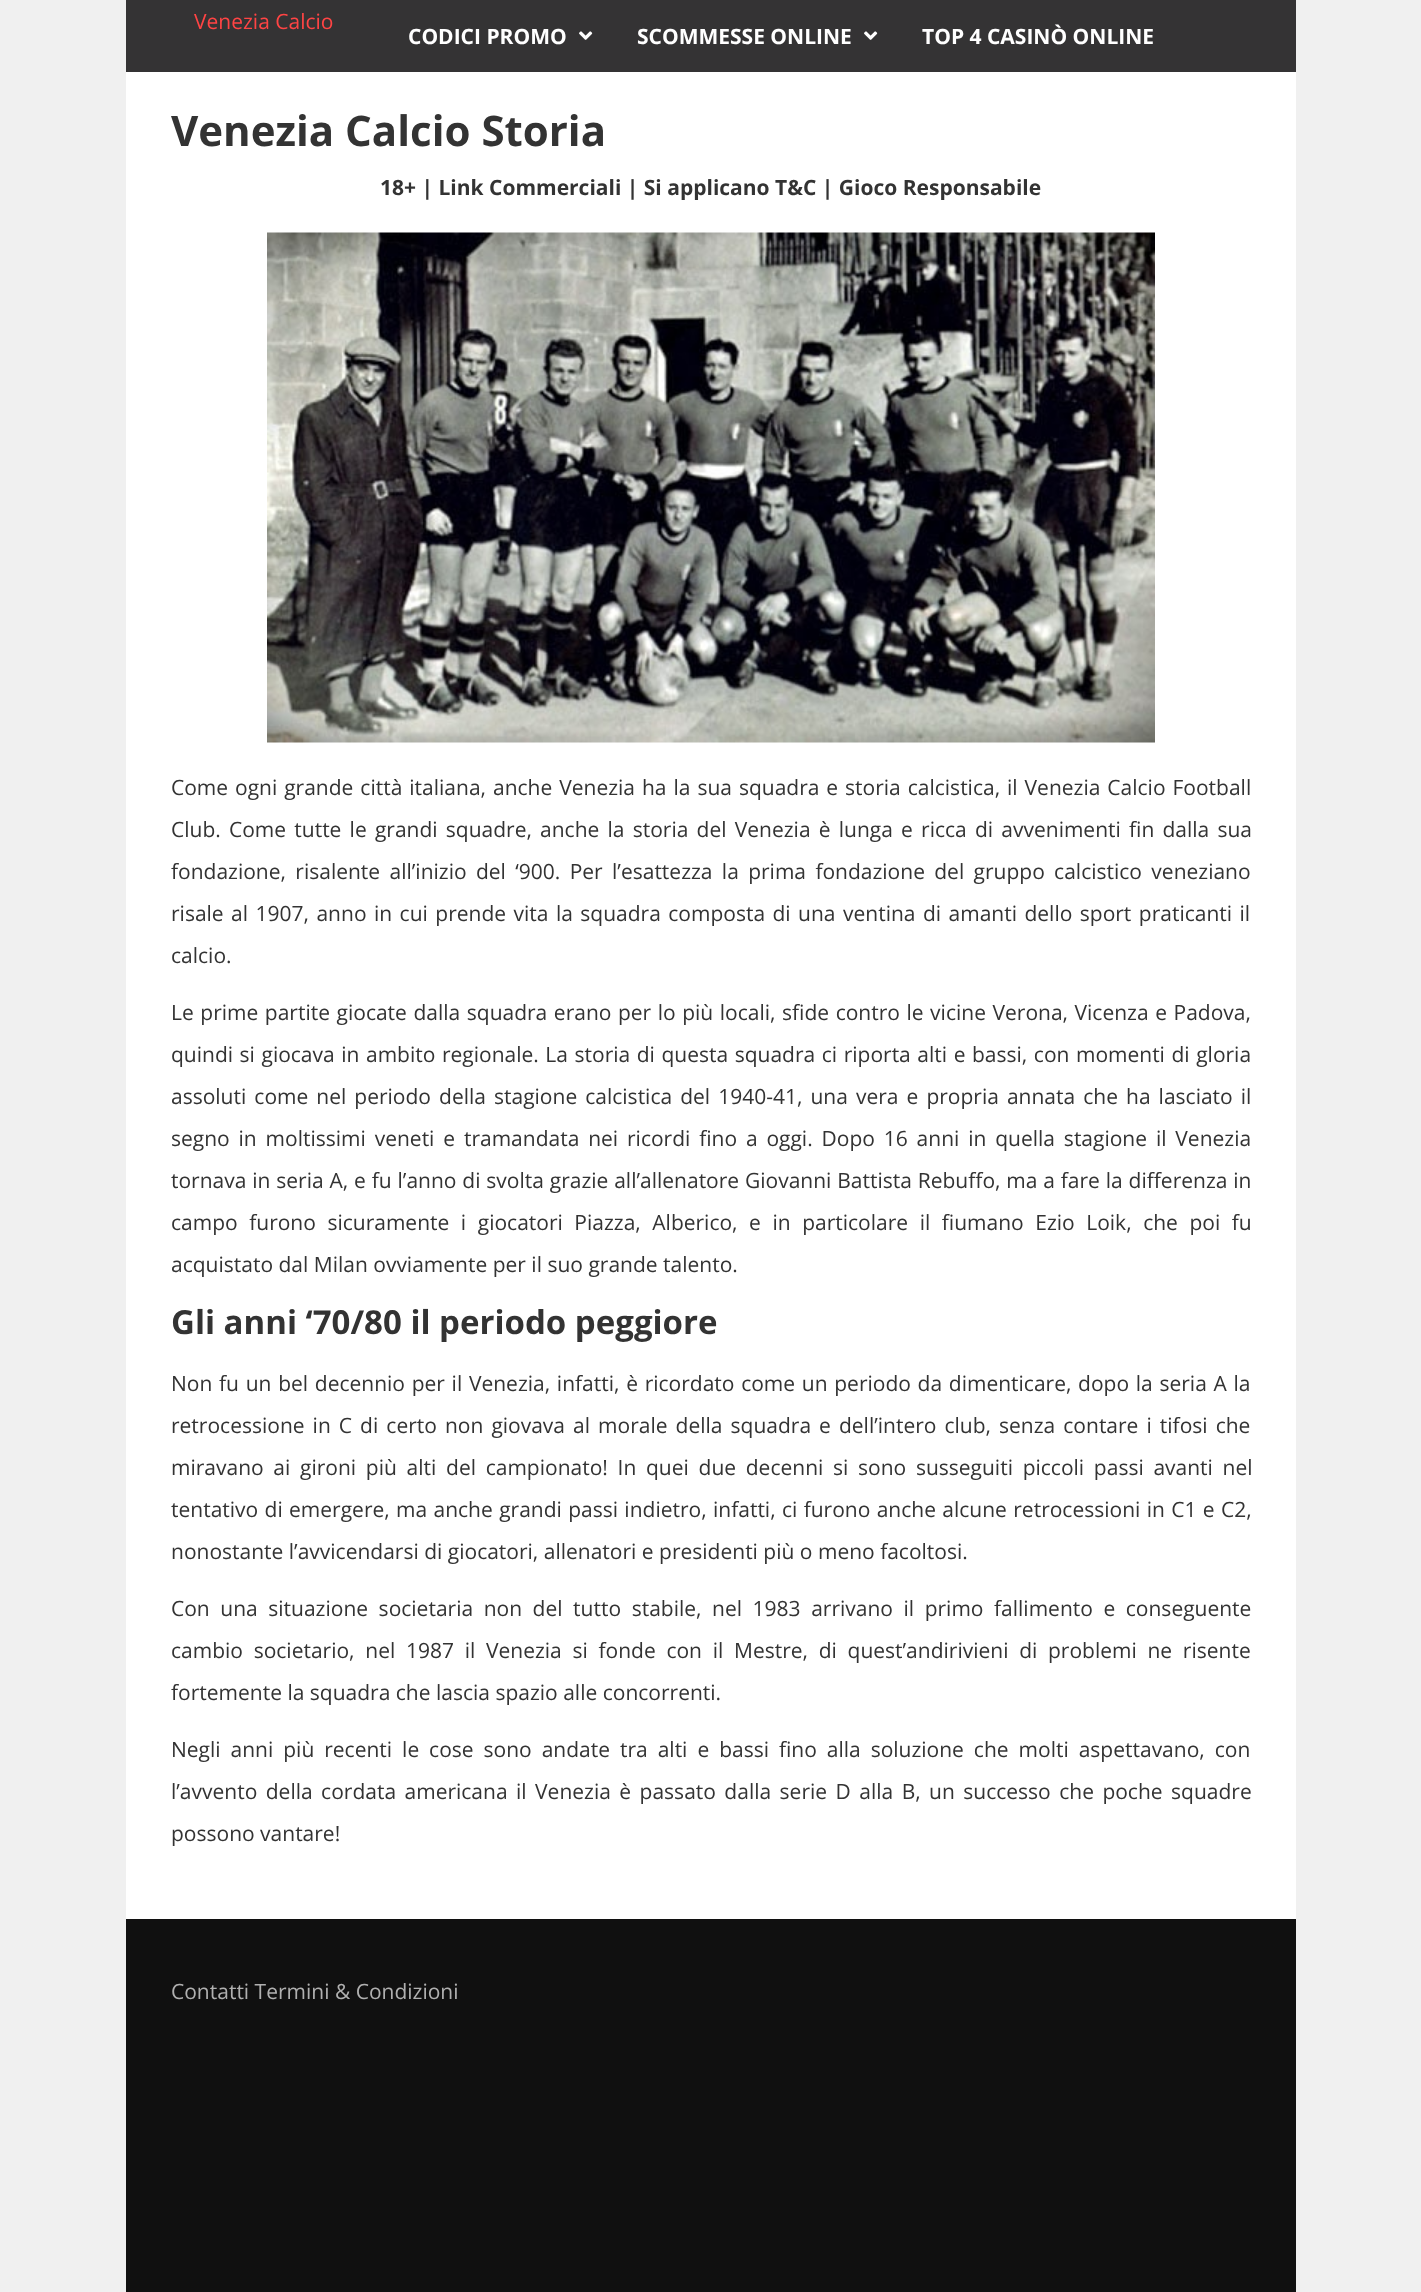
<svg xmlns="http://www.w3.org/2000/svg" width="1421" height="2292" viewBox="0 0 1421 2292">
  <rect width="100%" height="100%" fill="#f0f0f0"/>
  <rect x="126" y="72" width="1170" height="1847" fill="#ffffff"/>
  <rect x="126" y="0" width="1170" height="72" fill="#343334"/>
  <text x="194" y="29" font-family="Open Sans" font-size="21" fill="#ff4444">Venezia Calcio</text>
  <text x="408" y="44" font-family="Open Sans" font-size="21" font-weight="bold" fill="#ffffff">CODICI PROMO</text>
  <image x="579" y="31" width="14" height="9" href="img1.png"/>
  <text x="637" y="44" font-family="Open Sans" font-size="21" font-weight="bold" fill="#ffffff">SCOMMESSE ONLINE</text>
  <image x="864" y="31" width="14" height="9" href="img1.png"/>
  <text x="922" y="44" font-family="Open Sans" font-size="21" font-weight="bold" fill="#ffffff">TOP 4 CASINÒ ONLINE</text>
  <text x="171" y="146" font-family="Open Sans" font-size="42" font-weight="bold" fill="#333333">Venezia Calcio Storia</text>
  <text x="380" y="195" font-family="Open Sans" font-size="21" font-weight="bold" fill="#333333">18+ | Link Commerciali | Si applicano T&amp;C | Gioco Responsabile</text>
  <image x="267" y="232" width="888" height="511" href="img2.png"/>
  <text x="171" y="795" word-spacing="1.5" font-family="Open Sans" font-size="21" fill="#333333">Come ogni grande città italiana, anche Venezia ha la sua squadra e storia calcistica, il Venezia Calcio Football</text>
  <text x="171" y="837" word-spacing="2.75" font-family="Open Sans" font-size="21" fill="#333333">Club. Come tutte le grandi squadre, anche la storia del Venezia è lunga e ricca di avvenimenti fin dalla sua</text>
  <text x="171" y="879" word-spacing="3.9" font-family="Open Sans" font-size="21" fill="#333333">fondazione, risalente all’inizio del ‘900. Per l’esattezza la prima fondazione del gruppo calcistico veneziano</text>
  <text x="171" y="921" word-spacing="2" font-family="Open Sans" font-size="21" fill="#333333">risale al 1907, anno in cui prende vita la squadra composta di una ventina di amanti dello sport praticanti il</text>
  <text x="171" y="963" font-family="Open Sans" font-size="21" fill="#333333">calcio.</text>
  <text x="171" y="1020" word-spacing="1.1" font-family="Open Sans" font-size="21" fill="#333333">Le prime partite giocate dalla squadra erano per lo più locali, sfide contro le vicine Verona, Vicenza e Padova,</text>
  <text x="171" y="1062" word-spacing="1.1" font-family="Open Sans" font-size="21" fill="#333333">quindi si giocava in ambito regionale. La storia di questa squadra ci riporta alti e bassi, con momenti di gloria</text>
  <text x="171" y="1104" word-spacing="2.6" font-family="Open Sans" font-size="21" fill="#333333">assoluti come nel periodo della stagione calcistica del 1940-41, una vera e propria annata che ha lasciato il</text>
  <text x="171" y="1146" word-spacing="3.4" font-family="Open Sans" font-size="21" fill="#333333">segno in moltissimi veneti e tramandata nei ricordi fino a oggi. Dopo 16 anni in quella stagione il Venezia</text>
  <text x="171" y="1188" word-spacing="0.4" font-family="Open Sans" font-size="21" fill="#333333">tornava in seria A, e fu l’anno di svolta grazie all’allenatore Giovanni Battista Rebuffo, ma a fare la differenza in</text>
  <text x="171" y="1230" word-spacing="6.1" font-family="Open Sans" font-size="21" fill="#333333">campo furono sicuramente i giocatori Piazza, Alberico, e in particolare il fiumano Ezio Loik, che poi fu</text>
  <text x="171" y="1272" font-family="Open Sans" font-size="21" fill="#333333">acquistato dal Milan ovviamente per il suo grande talento.</text>
  <text x="171" y="1334" font-family="Open Sans" font-size="33" font-weight="bold" fill="#333333">Gli anni ‘70/80 il periodo peggiore</text>
  <text x="171" y="1391" word-spacing="1.25" font-family="Open Sans" font-size="21" fill="#333333">Non fu un bel decennio per il Venezia, infatti, è ricordato come un periodo da dimenticare, dopo la seria A la</text>
  <text x="171" y="1433" word-spacing="2.6" font-family="Open Sans" font-size="21" fill="#333333">retrocessione in C di certo non giovava al morale della squadra e dell’intero club, senza contare i tifosi che</text>
  <text x="171" y="1475" word-spacing="4.25" font-family="Open Sans" font-size="21" fill="#333333">miravano ai gironi più alti del campionato! In quei due decenni si sono susseguiti piccoli passi avanti nel</text>
  <text x="171" y="1517" word-spacing="0.9" font-family="Open Sans" font-size="21" fill="#333333">tentativo di emergere, ma anche grandi passi indietro, infatti, ci furono anche alcune retrocessioni in C1 e C2,</text>
  <text x="171" y="1559" font-family="Open Sans" font-size="21" fill="#333333">nonostante l’avvicendarsi di giocatori, allenatori e presidenti più o meno facoltosi.</text>
  <text x="171" y="1616" word-spacing="5.1" font-family="Open Sans" font-size="21" fill="#333333">Con una situazione societaria non del tutto stabile, nel 1983 arrivano il primo fallimento e conseguente</text>
  <text x="171" y="1658" word-spacing="5.25" font-family="Open Sans" font-size="21" fill="#333333">cambio societario, nel 1987 il Venezia si fonde con il Mestre, di quest’andirivieni di problemi ne risente</text>
  <text x="171" y="1700" font-family="Open Sans" font-size="21" fill="#333333">fortemente la squadra che lascia spazio alle concorrenti.</text>
  <text x="171" y="1757" word-spacing="4.5" font-family="Open Sans" font-size="21" fill="#333333">Negli anni più recenti le cose sono andate tra alti e bassi fino alla soluzione che molti aspettavano, con</text>
  <text x="171" y="1799" word-spacing="3" font-family="Open Sans" font-size="21" fill="#333333">l’avvento della cordata americana il Venezia è passato dalla serie D alla B, un successo che poche squadre</text>
  <text x="171" y="1841" font-family="Open Sans" font-size="21" fill="#333333">possono vantare!</text>
  <rect x="126" y="1919" width="1170" height="373" fill="#101010"/>
  <text x="171" y="1999" font-family="Open Sans" font-size="21" fill="#b0b0b0">Contatti Termini &amp; Condizioni</text>
</svg>
